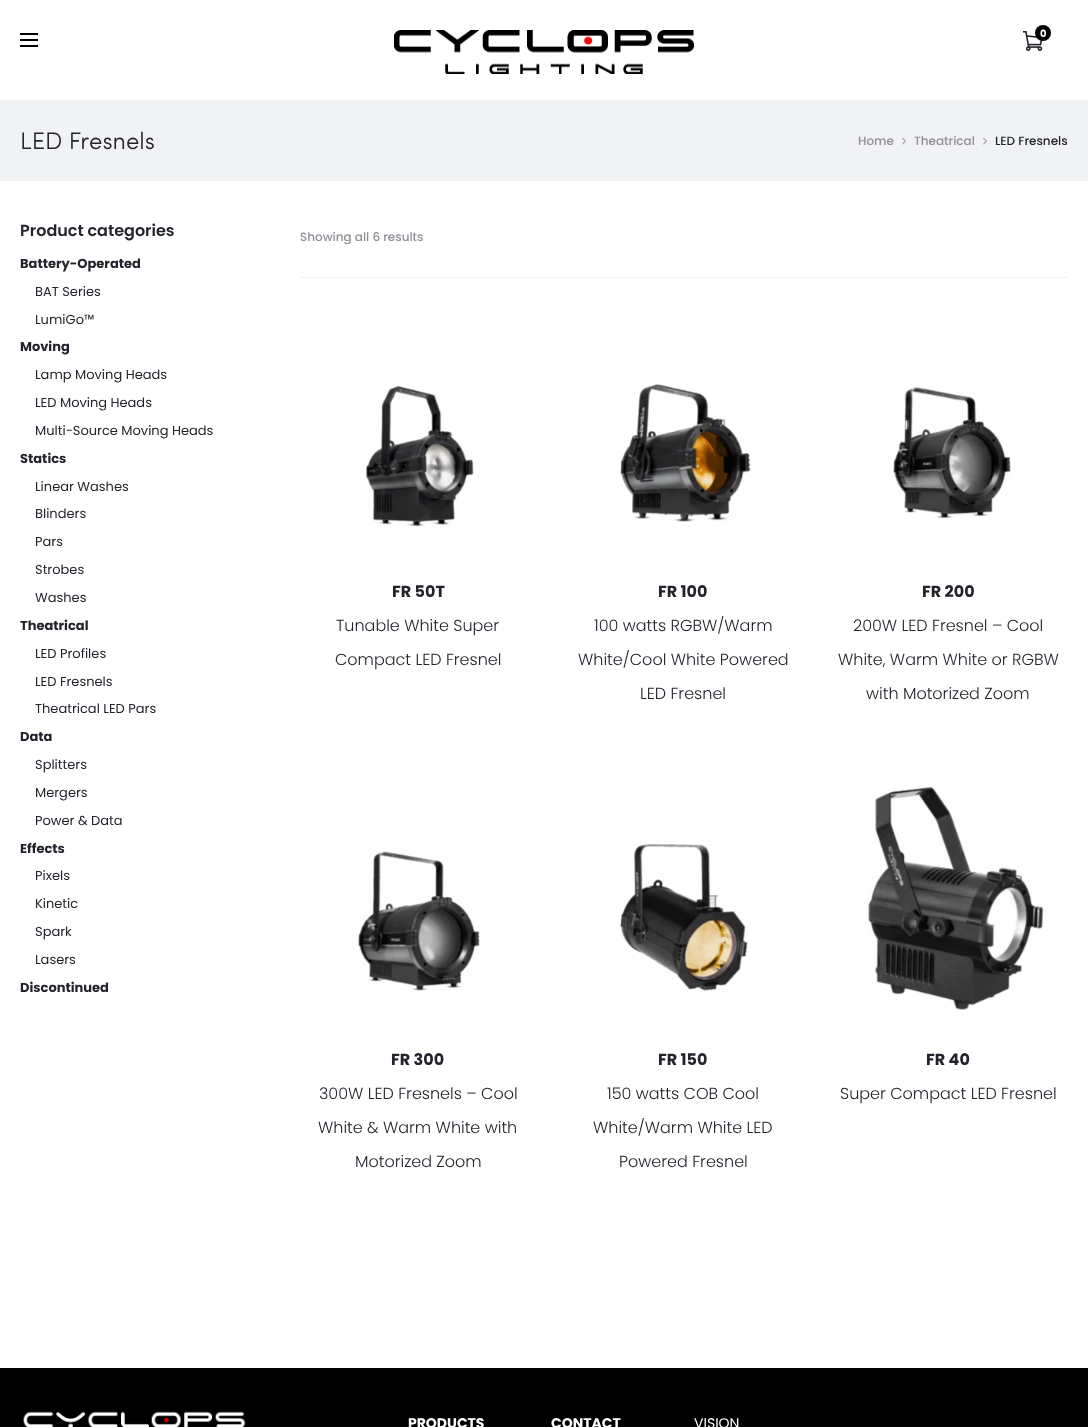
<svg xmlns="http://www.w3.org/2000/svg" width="1088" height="1427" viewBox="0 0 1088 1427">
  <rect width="100%" height="100%" fill="#ffffff"/>
  <rect x="20" y="39" width="18" height="2" fill="#000000"/>
  <rect x="20" y="33" width="18" height="2" fill="#000000"/>
  <rect x="20" y="45" width="18" height="2" fill="#000000"/>
  <image x="394" y="30" width="300" height="44" href="img1.png"/>
  <image x="1023" y="31" width="20" height="20" href="img2.png"/>
  <circle cx="1043" cy="33" r="8" fill="#000000"/>
  <text x="1040" y="37" font-family="Poppins" font-size="10" font-weight="bold" fill="#ffffff">0</text>
  <rect x="0" y="100" width="1088" height="81" fill="#f1f2f4"/>
  <text x="20" y="149" font-family="Sofia" font-size="24" fill="#23232c">LED Fresnels</text>
  <text x="858" y="145" font-family="Poppins" font-size="12" font-weight="500" fill="#909097">Home</text>
  <image x="902" y="137" width="4" height="8" href="img3.png"/>
  <text x="914" y="145" font-family="Poppins" font-size="12" font-weight="500" fill="#909097">Theatrical</text>
  <image x="983" y="137" width="4" height="8" href="img3.png"/>
  <text x="995" y="145" font-family="Poppins" font-size="12" font-weight="500" fill="#23232c">LED Fresnels</text>
  <text x="20" y="236" font-family="Poppins" font-size="16" font-weight="600" fill="#23232c">Product categories</text>
  <text x="20" y="268" font-family="Poppins" font-size="13" font-weight="bold" fill="#23232c">Battery-Operated</text>
  <text x="35" y="296" font-family="Poppins" font-size="13" fill="#23232c">BAT Series</text>
  <text x="35" y="324" font-family="Poppins" font-size="13" fill="#23232c">LumiGo™</text>
  <text x="20" y="351" font-family="Poppins" font-size="13" font-weight="bold" fill="#23232c">Moving</text>
  <text x="35" y="379" font-family="Poppins" font-size="13" fill="#23232c">Lamp Moving Heads</text>
  <text x="35" y="407" font-family="Poppins" font-size="13" fill="#23232c">LED Moving Heads</text>
  <text x="35" y="435" font-family="Poppins" font-size="13" fill="#23232c">Multi-Source Moving Heads</text>
  <text x="20" y="463" font-family="Poppins" font-size="13" font-weight="bold" fill="#23232c">Statics</text>
  <text x="35" y="491" font-family="Poppins" font-size="13" fill="#23232c">Linear Washes</text>
  <text x="35" y="518" font-family="Poppins" font-size="13" fill="#23232c">Blinders</text>
  <text x="35" y="546" font-family="Poppins" font-size="13" fill="#23232c">Pars</text>
  <text x="35" y="574" font-family="Poppins" font-size="13" fill="#23232c">Strobes</text>
  <text x="35" y="602" font-family="Poppins" font-size="13" fill="#23232c">Washes</text>
  <text x="20" y="630" font-family="Poppins" font-size="13" font-weight="bold" fill="#23232c">Theatrical</text>
  <text x="35" y="658" font-family="Poppins" font-size="13" fill="#23232c">LED Profiles</text>
  <text x="35" y="686" font-family="Poppins" font-size="13" fill="#23232c">LED Fresnels</text>
  <text x="35" y="713" font-family="Poppins" font-size="13" fill="#23232c">Theatrical LED Pars</text>
  <text x="20" y="741" font-family="Poppins" font-size="13" font-weight="bold" fill="#23232c">Data</text>
  <text x="35" y="769" font-family="Poppins" font-size="13" fill="#23232c">Splitters</text>
  <text x="35" y="797" font-family="Poppins" font-size="13" fill="#23232c">Mergers</text>
  <text x="35" y="825" font-family="Poppins" font-size="13" fill="#23232c">Power &amp; Data</text>
  <text x="20" y="853" font-family="Poppins" font-size="13" font-weight="bold" fill="#23232c">Effects</text>
  <text x="35" y="880" font-family="Poppins" font-size="13" fill="#23232c">Pixels</text>
  <text x="35" y="908" font-family="Poppins" font-size="13" fill="#23232c">Kinetic</text>
  <text x="35" y="936" font-family="Poppins" font-size="13" fill="#23232c">Spark</text>
  <text x="35" y="964" font-family="Poppins" font-size="13" fill="#23232c">Lasers</text>
  <text x="20" y="992" font-family="Poppins" font-size="13" font-weight="bold" fill="#23232c">Discontinued</text>
  <rect x="300" y="277" width="768" height="1" fill="#f1f2f4"/>
  <text x="300" y="241" font-family="Poppins" font-size="12" font-weight="500" fill="#909097">Showing all 6 results</text>
  <image x="366" y="385" width="108" height="142" href="img4.png"/>
  <text x="392" y="597" font-family="Poppins" font-size="16" font-weight="bold" fill="#23232c">FR 50T</text>
  <text x="336" y="631" font-family="Poppins" font-size="16" font-weight="300" fill="#23232c">Tunable White Super</text>
  <text x="335" y="665" font-family="Poppins" font-size="16" font-weight="300" fill="#23232c">Compact LED Fresnel</text>
  <image x="620" y="384" width="131" height="138" href="img5.png"/>
  <text x="658" y="597" font-family="Poppins" font-size="16" font-weight="bold" fill="#23232c">FR 100</text>
  <text x="594" y="631" font-family="Poppins" font-size="16" font-weight="300" fill="#23232c">100 watts RGBW/Warm</text>
  <text x="578" y="665" font-family="Poppins" font-size="16" font-weight="300" fill="#23232c">White/Cool White Powered</text>
  <text x="640" y="699" font-family="Poppins" font-size="16" font-weight="300" fill="#23232c">LED Fresnel</text>
  <image x="893" y="387" width="118" height="132" href="img6.png"/>
  <text x="922" y="597" font-family="Poppins" font-size="16" font-weight="bold" fill="#23232c">FR 200</text>
  <text x="853" y="631" font-family="Poppins" font-size="16" font-weight="300" fill="#23232c">200W LED Fresnel – Cool</text>
  <text x="838" y="665" font-family="Poppins" font-size="16" font-weight="300" fill="#23232c">White, Warm White or RGBW</text>
  <text x="866" y="699" font-family="Poppins" font-size="16" font-weight="300" fill="#23232c">with Motorized Zoom</text>
  <image x="358" y="851" width="122" height="140" href="img7.png"/>
  <text x="391" y="1065" font-family="Poppins" font-size="16" font-weight="bold" fill="#23232c">FR 300</text>
  <text x="319" y="1099" font-family="Poppins" font-size="16" font-weight="300" fill="#23232c">300W LED Fresnels – Cool</text>
  <text x="318" y="1133" font-family="Poppins" font-size="16" font-weight="300" fill="#23232c">White &amp; Warm White with</text>
  <text x="355" y="1167" font-family="Poppins" font-size="16" font-weight="300" fill="#23232c">Motorized Zoom</text>
  <image x="620" y="844" width="128" height="147" href="img8.png"/>
  <text x="658" y="1065" font-family="Poppins" font-size="16" font-weight="bold" fill="#23232c">FR 150</text>
  <text x="607" y="1099" font-family="Poppins" font-size="16" font-weight="300" fill="#23232c">150 watts COB Cool</text>
  <text x="593" y="1133" font-family="Poppins" font-size="16" font-weight="300" fill="#23232c">White/Warm White LED</text>
  <text x="619" y="1167" font-family="Poppins" font-size="16" font-weight="300" fill="#23232c">Powered Fresnel</text>
  <image x="868" y="786" width="176" height="224" href="img9.png"/>
  <text x="926" y="1065" font-family="Poppins" font-size="16" font-weight="bold" fill="#23232c">FR 40</text>
  <text x="840" y="1099" font-family="Poppins" font-size="16" font-weight="300" fill="#23232c">Super Compact LED Fresnel</text>
  <rect x="0" y="1368" width="1088" height="59" fill="#000000"/>
  <image x="23" y="1411" width="223" height="16" href="img10.png"/>
  <text x="408" y="1428" font-family="Poppins" font-size="14" font-weight="bold" fill="#ffffff">PRODUCTS</text>
  <text x="551" y="1428" font-family="Poppins" font-size="14" font-weight="bold" fill="#ffffff">CONTACT</text>
  <text x="694" y="1428" font-family="Poppins" font-size="14" fill="#ffffff">VISION</text>
</svg>
